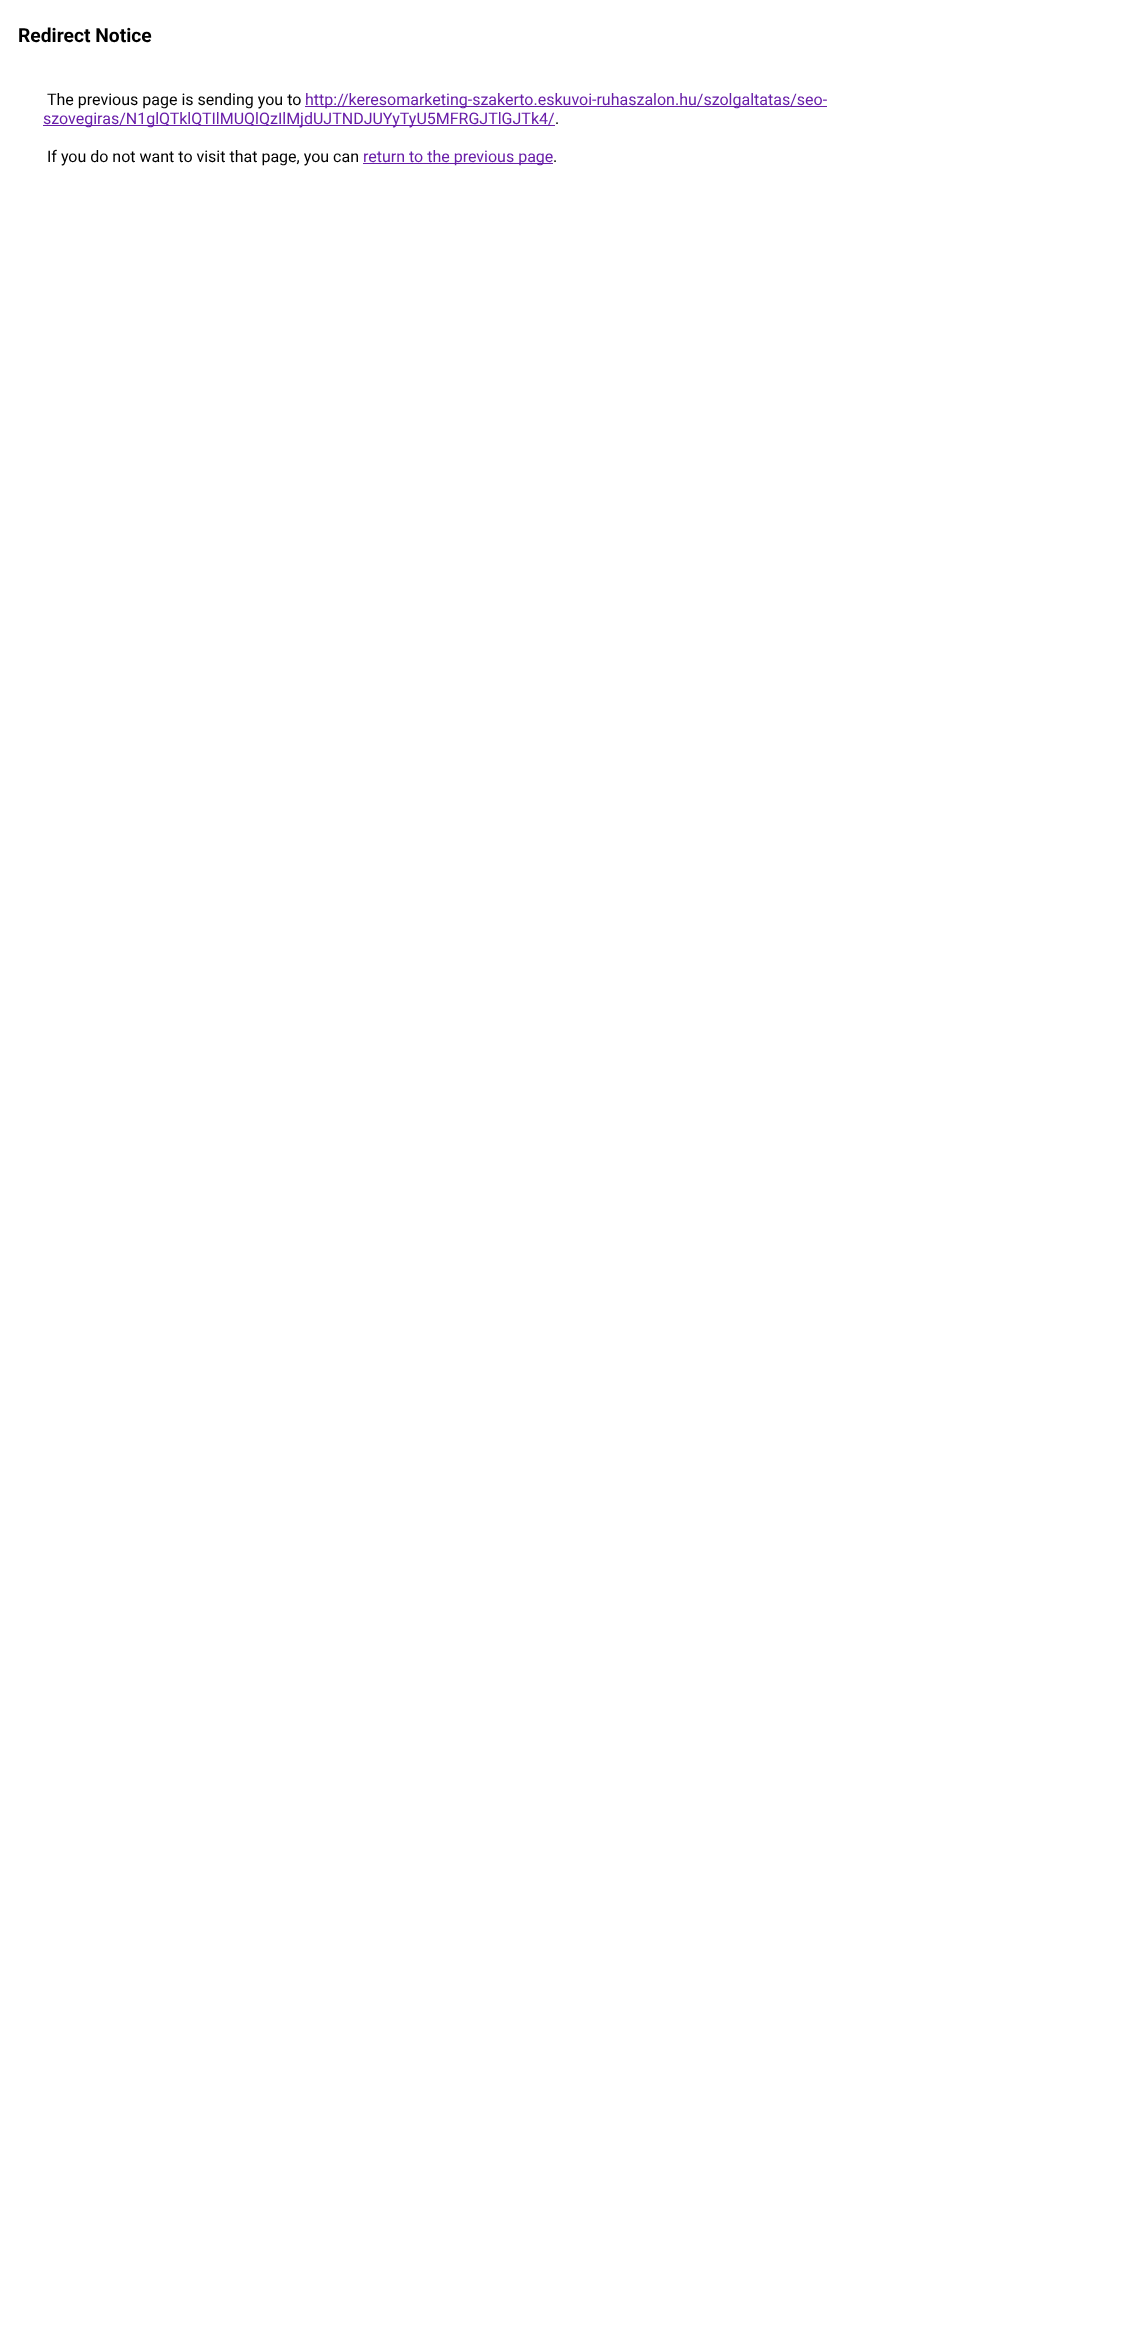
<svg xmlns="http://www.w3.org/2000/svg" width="1132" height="2331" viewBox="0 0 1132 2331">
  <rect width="100%" height="100%" fill="#ffffff"/>
  <text x="18" y="42" font-family="Roboto" font-size="19.25" font-weight="bold" fill="#000000">Redirect Notice</text>
  <text x="47" y="105" font-family="Roboto" font-size="16" fill="#000000">The previous page is sending you to</text>
  <rect x="305" y="106" width="522" height="1" fill="#681da8"/>
  <text x="305" y="105" font-family="Roboto" font-size="16" fill="#681da8">http://keresomarketing-szakerto.eskuvoi-ruhaszalon.hu/szolgaltatas/seo-</text>
  <rect x="43" y="125" width="512" height="1" fill="#681da8"/>
  <text x="43" y="124" font-family="Roboto" font-size="16" fill="#681da8">szovegiras/N1glQTklQTIlMUQlQzIlMjdUJTNDJUYyTyU5MFRGJTlGJTk4/</text>
  <text x="555" y="124" font-family="Roboto" font-size="16" fill="#000000">.</text>
  <text x="47" y="162" font-family="Roboto" font-size="16" fill="#000000">If you do not want to visit that page, you can</text>
  <rect x="363" y="163" width="190" height="1" fill="#681da8"/>
  <text x="363" y="162" font-family="Roboto" font-size="16" fill="#681da8">return to the previous page</text>
  <text x="553" y="162" font-family="Roboto" font-size="16" fill="#000000">.</text>
</svg>
